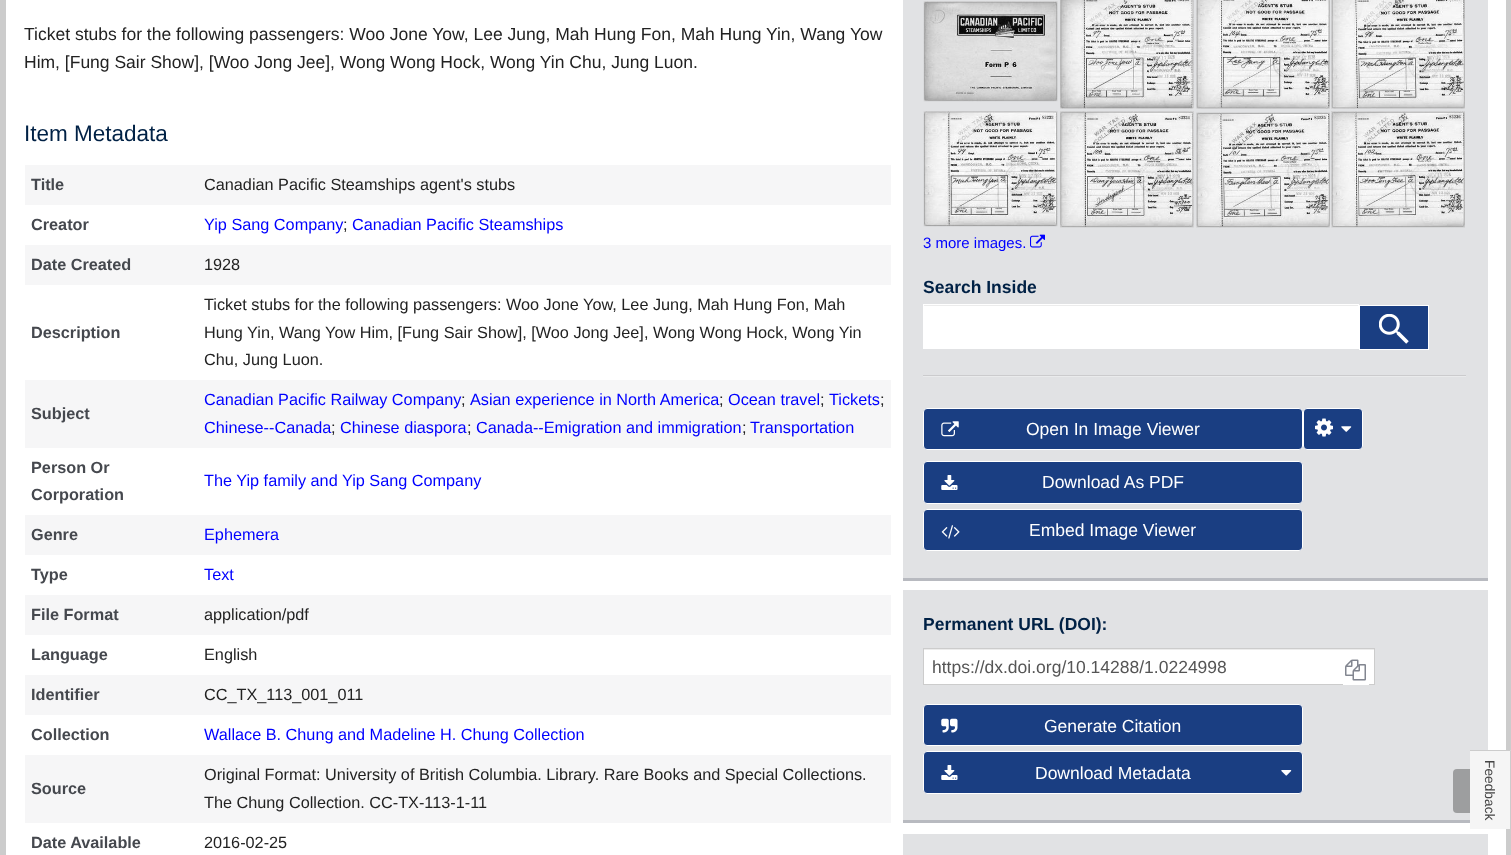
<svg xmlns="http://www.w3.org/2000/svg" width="1511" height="855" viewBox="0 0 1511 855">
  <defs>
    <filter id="blur1" x="-50%" y="-200%" width="200%" height="500%"><feGaussianBlur stdDeviation="0.5"/></filter>
  </defs>
  <rect width="100%" height="100%" fill="#cccccc"/>
  <rect x="6" y="0" width="1500" height="855" fill="#ffffff"/>
  <text x="24" y="40" font-family="Liberation Sans" font-size="17.5" fill="#222222">Ticket stubs for the following passengers: Woo Jone Yow, Lee Jung, Mah Hung Fon, Mah Hung Yin, Wang Yow</text>
  <text x="24" y="68" font-family="Liberation Sans" font-size="17.5" fill="#222222">Him, [Fung Sair Show], [Woo Jong Jee], Wong Wong Hock, Wong Yin Chu, Jung Luon.</text>
  <text x="24" y="141" font-family="Liberation Sans" font-size="22.5" fill="#002145">Item Metadata</text>
  <rect x="25" y="165" width="866" height="40" fill="#f6f6f7"/>
  <text x="31" y="190" font-family="Liberation Sans" font-size="16.25" font-weight="bold" fill="#45484e">Title</text>
  <text x="204" y="190" font-family="Liberation Sans" font-size="16.25" fill="#222222">Canadian Pacific Steamships agent's stubs</text>
  <text x="31" y="230" font-family="Liberation Sans" font-size="16.25" font-weight="bold" fill="#45484e">Creator</text>
  <text x="204" y="230" font-family="Liberation Sans" font-size="16.25" fill="#0000ff">Yip Sang Company</text>
  <text x="343" y="230" font-family="Liberation Sans" font-size="16.25" fill="#222222">;</text>
  <text x="352" y="230" font-family="Liberation Sans" font-size="16.25" fill="#0000ff">Canadian Pacific Steamships</text>
  <rect x="25" y="245" width="866" height="40" fill="#f6f6f7"/>
  <text x="31" y="270" font-family="Liberation Sans" font-size="16.25" font-weight="bold" fill="#45484e">Date Created</text>
  <text x="204" y="270" font-family="Liberation Sans" font-size="16.25" fill="#222222">1928</text>
  <text x="31" y="338" font-family="Liberation Sans" font-size="16.25" font-weight="bold" fill="#45484e">Description</text>
  <text x="204" y="310" font-family="Liberation Sans" font-size="16.25" fill="#222222">Ticket stubs for the following passengers: Woo Jone Yow, Lee Jung, Mah Hung Fon, Mah</text>
  <text x="204" y="338" font-family="Liberation Sans" font-size="16.25" fill="#222222">Hung Yin, Wang Yow Him, [Fung Sair Show], [Woo Jong Jee], Wong Wong Hock, Wong Yin</text>
  <text x="204" y="365" font-family="Liberation Sans" font-size="16.25" fill="#222222">Chu, Jung Luon.</text>
  <rect x="25" y="380" width="866" height="68" fill="#f6f6f7"/>
  <text x="31" y="419" font-family="Liberation Sans" font-size="16.25" font-weight="bold" fill="#45484e">Subject</text>
  <text x="204" y="405" font-family="Liberation Sans" font-size="16.25" fill="#0000ff">Canadian Pacific Railway Company</text>
  <text x="461" y="405" font-family="Liberation Sans" font-size="16.25" fill="#222222">;</text>
  <text x="470" y="405" font-family="Liberation Sans" font-size="16.25" fill="#0000ff">Asian experience in North America</text>
  <text x="719" y="405" font-family="Liberation Sans" font-size="16.25" fill="#222222">;</text>
  <text x="728" y="405" font-family="Liberation Sans" font-size="16.25" fill="#0000ff">Ocean travel</text>
  <text x="820" y="405" font-family="Liberation Sans" font-size="16.25" fill="#222222">;</text>
  <text x="829" y="405" font-family="Liberation Sans" font-size="16.25" fill="#0000ff">Tickets</text>
  <text x="880" y="405" font-family="Liberation Sans" font-size="16.25" fill="#222222">;</text>
  <text x="204" y="433" font-family="Liberation Sans" font-size="16.25" fill="#0000ff">Chinese--Canada</text>
  <text x="331" y="433" font-family="Liberation Sans" font-size="16.25" fill="#222222">;</text>
  <text x="340" y="433" font-family="Liberation Sans" font-size="16.25" fill="#0000ff">Chinese diaspora</text>
  <text x="467" y="433" font-family="Liberation Sans" font-size="16.25" fill="#222222">;</text>
  <text x="476" y="433" font-family="Liberation Sans" font-size="16.25" fill="#0000ff">Canada--Emigration and immigration</text>
  <text x="742" y="433" font-family="Liberation Sans" font-size="16.25" fill="#222222">;</text>
  <text x="750" y="433" font-family="Liberation Sans" font-size="16.25" fill="#0000ff">Transportation</text>
  <text x="31" y="473" font-family="Liberation Sans" font-size="16.25" font-weight="bold" fill="#45484e">Person Or</text>
  <text x="31" y="500" font-family="Liberation Sans" font-size="16.25" font-weight="bold" fill="#45484e">Corporation</text>
  <text x="204" y="486" font-family="Liberation Sans" font-size="16.25" fill="#0000ff">The Yip family and Yip Sang Company</text>
  <rect x="25" y="515" width="866" height="40" fill="#f6f6f7"/>
  <text x="31" y="540" font-family="Liberation Sans" font-size="16.25" font-weight="bold" fill="#45484e">Genre</text>
  <text x="204" y="540" font-family="Liberation Sans" font-size="16.25" fill="#0000ff">Ephemera</text>
  <text x="31" y="580" font-family="Liberation Sans" font-size="16.25" font-weight="bold" fill="#45484e">Type</text>
  <text x="204" y="580" font-family="Liberation Sans" font-size="16.25" fill="#0000ff">Text</text>
  <rect x="25" y="595" width="866" height="40" fill="#f6f6f7"/>
  <text x="31" y="620" font-family="Liberation Sans" font-size="16.25" font-weight="bold" fill="#45484e">File Format</text>
  <text x="204" y="620" font-family="Liberation Sans" font-size="16.25" fill="#222222">application/pdf</text>
  <text x="31" y="660" font-family="Liberation Sans" font-size="16.25" font-weight="bold" fill="#45484e">Language</text>
  <text x="204" y="660" font-family="Liberation Sans" font-size="16.25" fill="#222222">English</text>
  <rect x="25" y="675" width="866" height="40" fill="#f6f6f7"/>
  <text x="31" y="700" font-family="Liberation Sans" font-size="16.25" font-weight="bold" fill="#45484e">Identifier</text>
  <text x="204" y="700" font-family="Liberation Sans" font-size="16.25" fill="#222222">CC_TX_113_001_011</text>
  <text x="31" y="740" font-family="Liberation Sans" font-size="16.25" font-weight="bold" fill="#45484e">Collection</text>
  <text x="204" y="740" font-family="Liberation Sans" font-size="16.25" fill="#0000ff">Wallace B. Chung and Madeline H. Chung Collection</text>
  <rect x="25" y="755" width="866" height="68" fill="#f6f6f7"/>
  <text x="31" y="794" font-family="Liberation Sans" font-size="16.25" font-weight="bold" fill="#45484e">Source</text>
  <text x="204" y="780" font-family="Liberation Sans" font-size="16.25" fill="#222222">Original Format: University of British Columbia. Library. Rare Books and Special Collections.</text>
  <text x="204" y="808" font-family="Liberation Sans" font-size="16.25" fill="#222222">The Chung Collection. CC-TX-113-1-11</text>
  <text x="31" y="848" font-family="Liberation Sans" font-size="16.25" font-weight="bold" fill="#45484e">Date Available</text>
  <text x="204" y="848" font-family="Liberation Sans" font-size="16.25" fill="#222222">2016-02-25</text>
  <rect x="903" y="0" width="585" height="578" fill="#e1e2e4"/>
  <rect x="903" y="578" width="585" height="3" fill="#b8bac0"/>
  <image x="923" y="1" width="135" height="101" href="img1.png"/>
  <image x="1060" y="0" width="134" height="109" href="img2.png"/>
  <image x="1196" y="0" width="134" height="109" href="img3.png"/>
  <image x="1331" y="0" width="134" height="109" href="img4.png"/>
  <image x="923" y="111" width="135" height="116" href="img5.png"/>
  <image x="1060" y="111" width="134" height="117" href="img6.png"/>
  <image x="1196" y="112" width="134" height="116" href="img7.png"/>
  <image x="1331" y="111" width="134" height="117" href="img8.png"/>
  <text x="923" y="248" font-family="Liberation Sans" font-size="15" fill="#0000ff">3 more images.</text>
  <image x="1030" y="234" width="15" height="14" href="img9.png"/>
  <text x="923" y="293" font-family="Liberation Sans" font-size="17.5" font-weight="bold" fill="#002145">Search Inside</text>
  <rect x="923" y="304" width="436" height="45" fill="#ffffff"/>
  <rect x="924" y="305" width="434" height="1" fill="#ececec"/>
  <rect x="1359.5" y="305.5" width="69" height="44" fill="#1a3e82" stroke="#ffffff"/>
  <image x="1379" y="314" width="30" height="30" href="img10.png"/>
  <rect x="923" y="375" width="543" height="1" fill="#cbcbcd"/>
  <rect x="923" y="376" width="543" height="1" fill="#eaebec"/>
  <rect x="923.5" y="408.5" width="379" height="41" rx="3.5" fill="#1a3e82" stroke="#ffffff"/>
  <image x="941" y="421" width="18" height="16" href="img11.png"/>
  <text x="1026" y="435" font-family="Liberation Sans" font-size="17.5" fill="#ffffff">Open In Image Viewer</text>
  <rect x="1303.5" y="408.5" width="59" height="41" rx="3.5" fill="#1a3e82" stroke="#ffffff"/>
  <image x="1315" y="418" width="18" height="19" href="img12.png"/>
  <image x="1341" y="426" width="11" height="6" href="img13.png"/>
  <rect x="923.5" y="461.5" width="379" height="42" rx="3.5" fill="#1a3e82" stroke="#ffffff"/>
  <image x="941" y="475" width="17" height="15" href="img14.png"/>
  <text x="1042" y="488" font-family="Liberation Sans" font-size="17.5" fill="#ffffff">Download As PDF</text>
  <rect x="923.5" y="509.5" width="379" height="41" rx="3.5" fill="#1a3e82" stroke="#ffffff"/>
  <image x="941" y="525" width="19" height="14" href="img15.png"/>
  <text x="1029" y="536" font-family="Liberation Sans" font-size="17.5" fill="#ffffff">Embed Image Viewer</text>
  <rect x="903" y="590" width="585" height="230" fill="#e1e2e4"/>
  <rect x="903" y="820" width="567" height="3" fill="#b8bac0"/>
  <text x="923" y="630" font-family="Liberation Sans" font-size="17.5" font-weight="bold" fill="#002145">Permanent URL (DOI):</text>
  <rect x="924" y="650" width="450" height="34" fill="#ffffff"/>
  <rect x="924" y="649" width="450" height="1" fill="#ececec"/>
  <rect x="923.5" y="648.5" width="451" height="36" fill="none" stroke="#cccccc"/>
  <text x="932" y="673" font-family="Liberation Sans" font-size="17.5" fill="#555555">https://dx.doi.org/10.14288/1.0224998</text>
  <rect x="1343" y="684" width="26" height="1" fill="#ffffff"/>
  <image x="1345" y="659" width="21" height="22" href="img16.png"/>
  <rect x="923.5" y="704.5" width="379" height="41" rx="3.5" fill="#1a3e82" stroke="#ffffff"/>
  <image x="941" y="718" width="17" height="15" href="img17.png"/>
  <text x="1044" y="732" font-family="Liberation Sans" font-size="17.5" fill="#ffffff">Generate Citation</text>
  <rect x="923.5" y="751.5" width="379" height="42" rx="3.5" fill="#1a3e82" stroke="#ffffff"/>
  <image x="941" y="765" width="17" height="15" href="img14.png"/>
  <text x="1035" y="779" font-family="Liberation Sans" font-size="17.5" fill="#ffffff">Download Metadata</text>
  <image x="1281" y="770" width="11" height="6" href="img18.png"/>
  <rect x="903" y="834" width="585" height="21" fill="#e1e2e4"/>
  <rect x="1453" y="769" width="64" height="44" rx="4" fill="#000000" fill-opacity="0.3" filter="url(#blur1)"/>
  <path d="M1511 752V829H1470V750H1509C1510 750 1511 751 1511 752Z" fill="#f5f5f5"/>
  <rect x="1510" y="751" width="1" height="78" fill="#cccccc"/>
  <rect x="1470" y="750" width="40" height="1" fill="#cccccc"/>
  <text x="1485" y="760" transform="rotate(90 1485 760)" font-family="Liberation Sans" font-size="13.75" fill="#444444">Feedback</text>
</svg>
